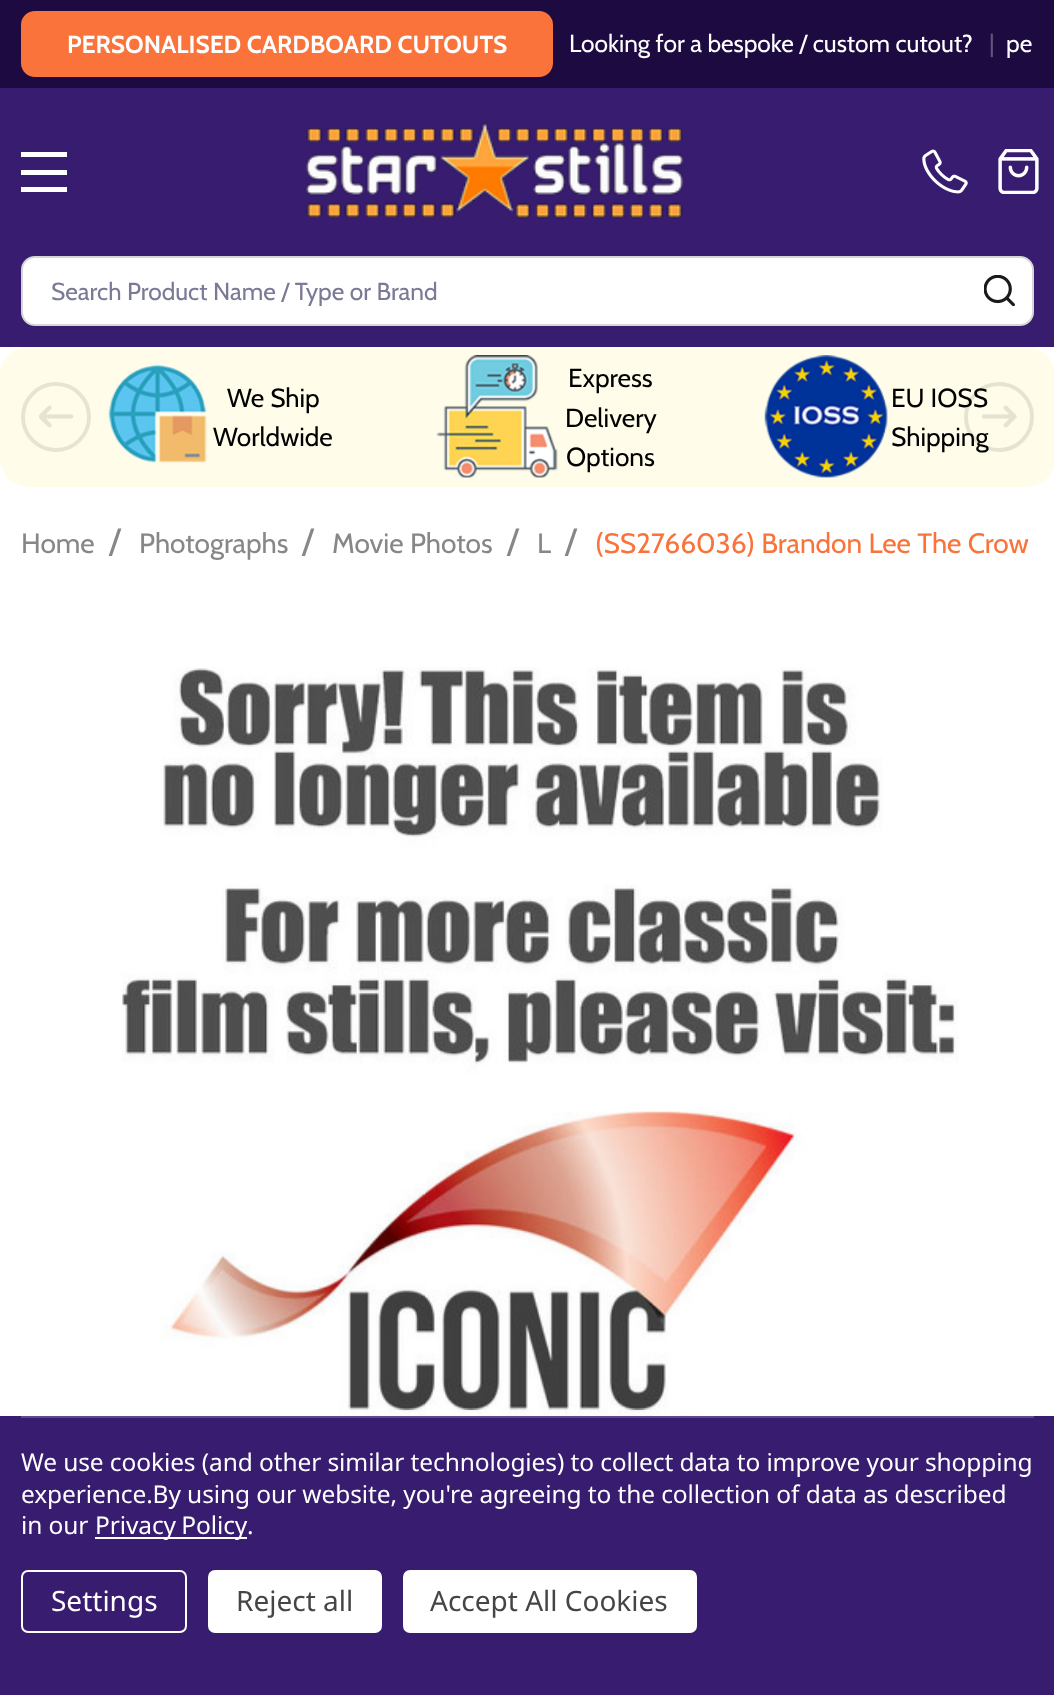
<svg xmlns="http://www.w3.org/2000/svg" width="1054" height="1695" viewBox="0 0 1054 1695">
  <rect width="100%" height="100%" fill="#ffffff"/>
  <rect x="0" y="0" width="1054" height="88" fill="#1c0a41"/>
  <rect x="23" y="13" width="528" height="62" rx="12" fill="#f9733a" stroke="#f9733a" stroke-width="4"/>
  <text x="67" y="53" font-family="Cabin" font-size="24.5" font-weight="bold" fill="#ffffff">PERSONALISED CARDBOARD CUTOUTS</text>
  <text x="569" y="52" font-family="Cabin" font-size="24.5" fill="#ffffff">Looking for a bespoke / custom cutout?</text>
  <text x="989" y="52" font-family="Cabin" font-size="24.5" fill="#60547a">|</text>
  <text x="1006" y="52" font-family="Cabin" font-size="24.5" fill="#ffffff">pe</text>
  <rect x="0" y="88" width="1054" height="259" fill="#371c70"/>
  <rect x="21" y="170" width="46" height="5" fill="#ffffff"/>
  <rect x="21" y="152" width="46" height="5" fill="#ffffff"/>
  <rect x="21" y="187" width="46" height="5" fill="#ffffff"/>
  <image x="306" y="122" width="377" height="97" href="img1.png"/>
  <image x="922" y="149" width="46" height="45" href="img2.png"/>
  <image x="998" y="149" width="41" height="45" href="img3.png"/>
  <rect x="22" y="257" width="1011" height="68" rx="13" fill="#ffffff" stroke="#d6d6d6" stroke-width="2"/>
  <text x="51" y="300" font-family="Cabin" font-size="24.5" fill="#7a7a97">Search Product Name / Type or Brand</text>
  <image x="984" y="275" width="31" height="31" href="img4.png"/>
  <rect x="0" y="347" width="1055" height="140" rx="28" fill="#fffdea"/>
  <image x="39" y="405" width="35" height="23" href="img5.png"/>
  <circle cx="56" cy="417" r="33" fill="none" stroke="#e6e4d3" stroke-width="4"/>
  <image x="108" y="364" width="99" height="99" href="img6.png"/>
  <text x="227" y="407" font-family="Cabin" font-size="26.25" fill="#000000">We Ship</text>
  <text x="213" y="446" font-family="Cabin" font-size="26.25" fill="#000000">Worldwide</text>
  <image x="436" y="355" width="122" height="123" href="img7.png"/>
  <text x="568" y="387" font-family="Cabin" font-size="26.25" fill="#000000">Express</text>
  <text x="565" y="427" font-family="Cabin" font-size="26.25" fill="#000000">Delivery</text>
  <text x="566" y="466" font-family="Cabin" font-size="26.25" fill="#000000">Options</text>
  <image x="764" y="355" width="124" height="123" href="img8.png"/>
  <text x="891" y="407" font-family="Cabin" font-size="26.25" fill="#000000">EU IOSS</text>
  <text x="891" y="446" font-family="Cabin" font-size="26.25" fill="#000000">Shipping</text>
  <image x="982" y="405" width="35" height="23" href="img9.png"/>
  <circle cx="999" cy="417" r="33" fill="none" stroke="#000000" stroke-opacity="0.1" stroke-width="4"/>
  <text x="21" y="553" font-family="Cabin" font-size="28" fill="#878787">Home</text>
  <text x="109" y="553" font-family="Cabin" font-size="35" fill="#878787">/</text>
  <text x="139" y="553" font-family="Cabin" font-size="28" fill="#878787">Photographs</text>
  <text x="302" y="553" font-family="Cabin" font-size="35" fill="#878787">/</text>
  <text x="332" y="553" font-family="Cabin" font-size="28" fill="#878787">Movie Photos</text>
  <text x="507" y="553" font-family="Cabin" font-size="35" fill="#878787">/</text>
  <text x="537" y="553" font-family="Cabin" font-size="28" fill="#878787">L</text>
  <text x="565" y="553" font-family="Cabin" font-size="35" fill="#878787">/</text>
  <text x="595" y="553" font-family="Cabin" font-size="28" fill="#f9733a">(SS2766036) Brandon Lee The Crow</text>
  <image x="122" y="667" width="837" height="749" href="img10.png"/>
  <rect x="0" y="1416" width="1054" height="279" fill="#371c70"/>
  <rect x="21" y="1416" width="1013" height="2" fill="#5f498d"/>
  <text x="21" y="1471" font-family="Noto Sans" font-size="24.5" letter-spacing="-0.1" fill="#ffffff">We use cookies (and other similar technologies) to collect data to improve your shopping</text>
  <text x="21" y="1503" font-family="Noto Sans" font-size="24.5" letter-spacing="-0.1" fill="#ffffff">experience.By using our website, you're agreeing to the collection of data as described</text>
  <text x="21" y="1534" font-family="Noto Sans" font-size="24.5" letter-spacing="-0.1" fill="#ffffff">in our</text>
  <rect x="95" y="1537" width="152" height="2" fill="#ffffff"/>
  <text x="95" y="1534" word-spacing="-1" font-family="Noto Sans" font-size="24.5" letter-spacing="-0.1" fill="#ffffff">Privacy Policy</text>
  <text x="247" y="1534" font-family="Noto Sans" font-size="24.5" letter-spacing="-0.1" fill="#ffffff">.</text>
  <rect x="22" y="1571" width="164" height="61" rx="6" fill="none" stroke="#ffffff" stroke-width="2"/>
  <text x="51" y="1611" font-family="Noto Sans" font-size="28" fill="#ffffff">Settings</text>
  <rect x="208" y="1570" width="174" height="63" rx="7" fill="#ffffff"/>
  <text x="236" y="1611" font-family="Noto Sans" font-size="28" fill="#454545">Reject all</text>
  <rect x="403" y="1570" width="294" height="63" rx="7" fill="#ffffff"/>
  <text x="430" y="1611" font-family="Noto Sans" font-size="28" fill="#454545">Accept All Cookies</text>
</svg>
